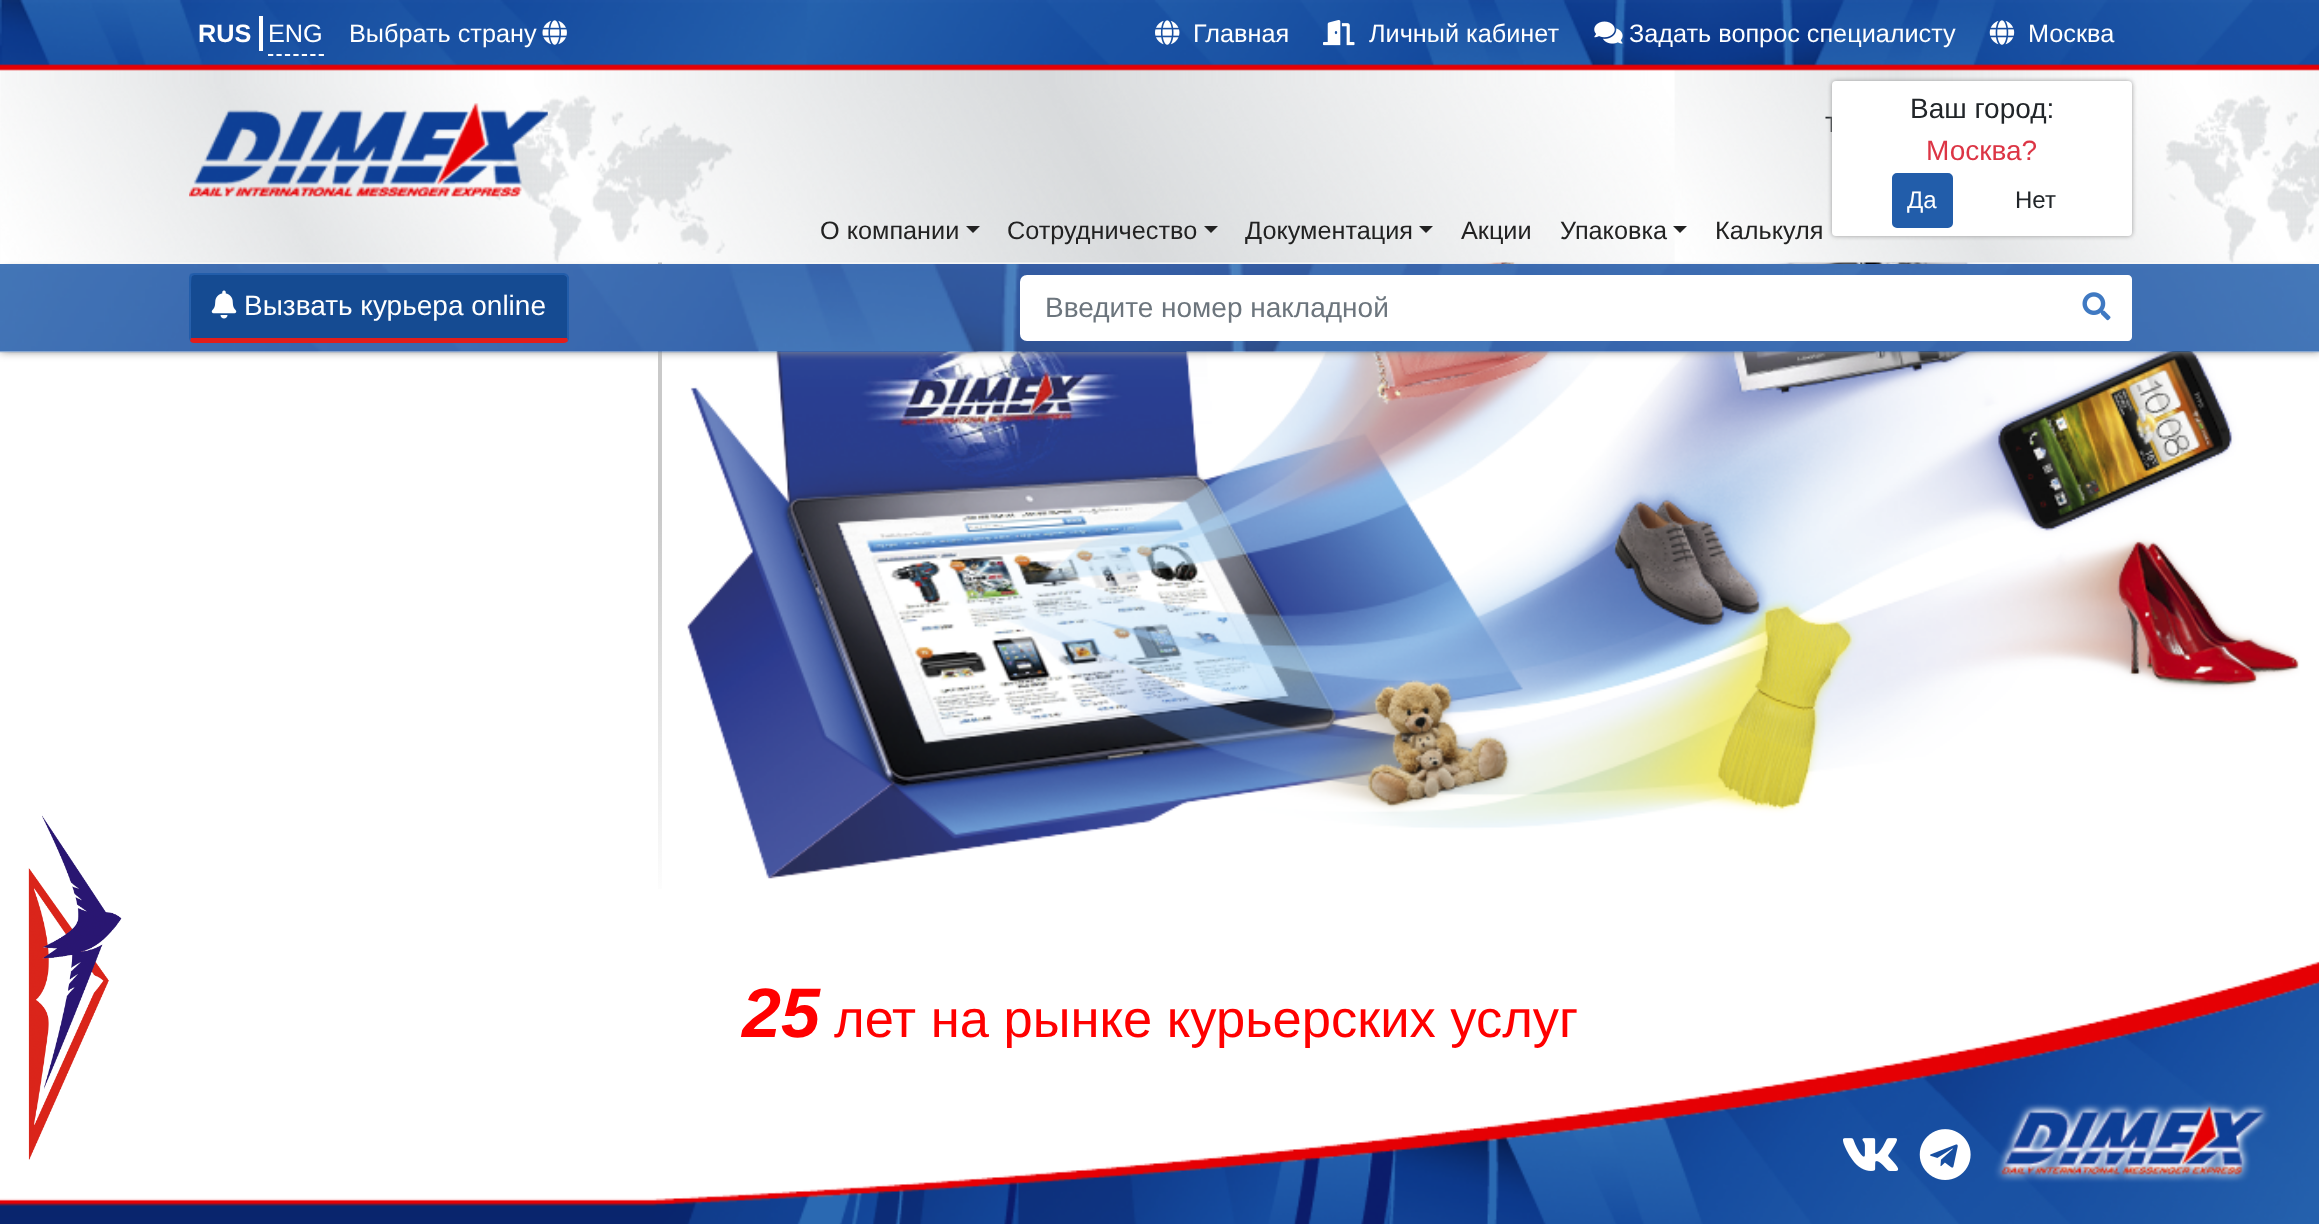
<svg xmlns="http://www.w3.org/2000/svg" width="2319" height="1224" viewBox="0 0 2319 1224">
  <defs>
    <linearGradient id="g1" gradientUnits="userSpaceOnUse" x1="660" y1="-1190" x2="660" y2="907"><stop offset="0" stop-color="#ffffff"/><stop offset="0.22" stop-color="#d1d1d1"/><stop offset="0.51" stop-color="#c9c9c9"/><stop offset="0.81" stop-color="#c9c9c9"/><stop offset="1" stop-color="#ffffff"/></linearGradient>
    <clipPath id="clip1"><path d="M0 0H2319V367H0ZM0 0H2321V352H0Z" clip-rule="evenodd"/></clipPath>
    <filter id="blur1" x="-50%" y="-200%" width="200%" height="500%"><feGaussianBlur stdDeviation="4.5"/></filter>
    <filter id="blur2" x="-50%" y="-200%" width="200%" height="500%"><feGaussianBlur stdDeviation="2.5"/></filter>
    <clipPath id="clip2"><path d="M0 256H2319V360H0ZM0 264H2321V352H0Z" clip-rule="evenodd"/></clipPath>
  </defs>
  <rect width="100%" height="100%" fill="#ffffff"/>
  <rect x="658" y="262" width="4" height="627" fill="url(#g1)"/>
  <image x="687" y="262" width="1613" height="617" href="img12.png"/>
  <g clip-path="url(#clip1)">
    <rect x="0" y="0" width="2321" height="352" fill="#999999" filter="url(#blur1)"/>
  </g>
  <image x="0" y="0" width="2319" height="263" href="img1.png"/>
  <image x="0" y="0" width="2319" height="71" href="img2.png"/>
  <text x="198" y="42" font-family="Liberation Sans" font-size="25.25" font-weight="bold" fill="#ffffff">RUS</text>
  <path d="M268 55H324" fill="none" stroke="#ffffff" stroke-width="1.8" stroke-dasharray="5.25 3.2"/>
  <rect x="259" y="16" width="4" height="35" fill="#ffffff"/>
  <text x="268" y="42" font-family="Liberation Sans" font-size="25.25" fill="#ffffff">ENG</text>
  <text x="349" y="42" font-family="Liberation Sans" font-size="25.25" fill="#ffffff">Выбрать страну</text>
  <image x="542" y="20" width="25" height="25" href="img3.png"/>
  <image x="1155" y="20" width="25" height="25" href="img4.png"/>
  <text x="1193" y="42" font-family="Liberation Sans" font-size="25.25" fill="#ffffff">Главная</text>
  <image x="1323" y="20" width="32" height="26" href="img5.png"/>
  <text x="1369" y="42" font-family="Liberation Sans" font-size="25.25" fill="#ffffff">Личный кабинет</text>
  <image x="1594" y="21" width="29" height="23" href="img6.png"/>
  <text x="1629" y="42" font-family="Liberation Sans" font-size="25.25" fill="#ffffff">Задать вопрос специалисту</text>
  <image x="1989" y="20" width="26" height="25" href="img7.png"/>
  <text x="2028" y="42" font-family="Liberation Sans" font-size="25.25" fill="#ffffff">Москва</text>
  <image x="189" y="103" width="359" height="94" href="img8.png"/>
  <text x="1825" y="132" font-family="Liberation Sans" font-size="22" fill="#212529">Т</text>
  <rect x="1832" y="81" width="300" height="155" rx="4" fill="#999999" filter="url(#blur2)"/>
  <rect x="1832" y="81" width="300" height="155" rx="4" fill="#ffffff"/>
  <text x="1910" y="118" font-family="Liberation Sans" font-size="28" fill="#212529">Ваш город:</text>
  <text x="1926" y="160" font-family="Liberation Sans" font-size="28" fill="#dc3545">Москва?</text>
  <rect x="1893" y="174" width="59" height="53" rx="4" fill="#225daa" stroke="#225daa" stroke-width="2"/>
  <text x="1907" y="208" font-family="Liberation Sans" font-size="24" fill="#ffffff">Да</text>
  <text x="2015" y="208" font-family="Liberation Sans" font-size="24" fill="#212529">Нет</text>
  <text x="820" y="239" font-family="Liberation Sans" font-size="25.25" fill="#222222">О компании</text>
  <path d="M966 226H980L973 233Z" fill="#222222"/>
  <text x="1007" y="239" font-family="Liberation Sans" font-size="25.25" fill="#222222">Сотрудничество</text>
  <path d="M1204 226H1218L1211 233Z" fill="#222222"/>
  <text x="1245" y="239" font-family="Liberation Sans" font-size="25.25" fill="#222222">Документация</text>
  <path d="M1419 226H1433L1426 233Z" fill="#222222"/>
  <text x="1461" y="239" font-family="Liberation Sans" font-size="25.25" fill="#222222">Акции</text>
  <text x="1560" y="239" font-family="Liberation Sans" font-size="25.25" fill="#222222">Упаковка</text>
  <path d="M1673 226H1687L1680 233Z" fill="#222222"/>
  <text x="1715" y="239" font-family="Liberation Sans" font-size="25.25" fill="#222222">Калькуля</text>
  <g clip-path="url(#clip2)">
    <rect x="7" y="271" width="2307" height="74" fill="#000000" filter="url(#blur1)"/>
  </g>
  <image x="0" y="264" width="2319" height="89" href="img9.png"/>
  <path d="M194 275H564C565 275 567 276 567 278V338H191V278C191 276 192 275 194 275Z" fill="#154b92"/>
  <path d="M194 273C192 273 191 274 190 274L192 276L194 275H564L566 276L567 274L564 273Z" fill="#225daa"/>
  <path d="M569 339L568 341L567 338V278C567 277 567 276 566 276L567 274L569 277Z" fill="#225daa"/>
  <path d="M194 343H564C565 343 567 342 568 341L567 338H191V337L190 341C191 342 192 343 194 343Z" fill="#e21d1a"/>
  <path d="M189 278V338L190 341L191 337C191 330 190 278 192 276L190 274C190 275 189 276 189 278Z" fill="#225daa"/>
  <image x="211" y="290" width="26" height="29" href="img10.png"/>
  <text x="244" y="315" font-family="Liberation Sans" font-size="28" fill="#ffffff">Вызвать курьера online</text>
  <path d="M1027 277H2065V339H1027C1024 339 1022 337 1022 334V282C1022 279 1024 277 1027 277Z" fill="#ffffff" stroke="#ffffff" stroke-width="4"/>
  <text x="1045" y="317" font-family="Liberation Sans" font-size="28" fill="#6c757d">Введите номер накладной</text>
  <path d="M2062 275H2128C2130 275 2132 277 2132 279V337C2132 339 2130 341 2128 341H2062Z" fill="#ffffff"/>
  <image x="2082" y="292" width="29" height="29" href="img11.png"/>
  <image x="0" y="961" width="2319" height="263" href="img14.png"/>
  <image x="28" y="815" width="94" height="345" href="img13.png"/>
  <text x="742" y="1037" font-family="Liberation Sans" font-size="70" font-weight="bold" font-style="italic" fill="#ff0000">25</text>
  <text x="834" y="1037" font-family="Liberation Sans" font-size="52.5" fill="#ff0000">лет на рынке курьерских услуг</text>
  <image x="1843" y="1138" width="56" height="33" href="img15.png"/>
  <image x="1919" y="1129" width="52" height="51" href="img16.png"/>
</svg>
